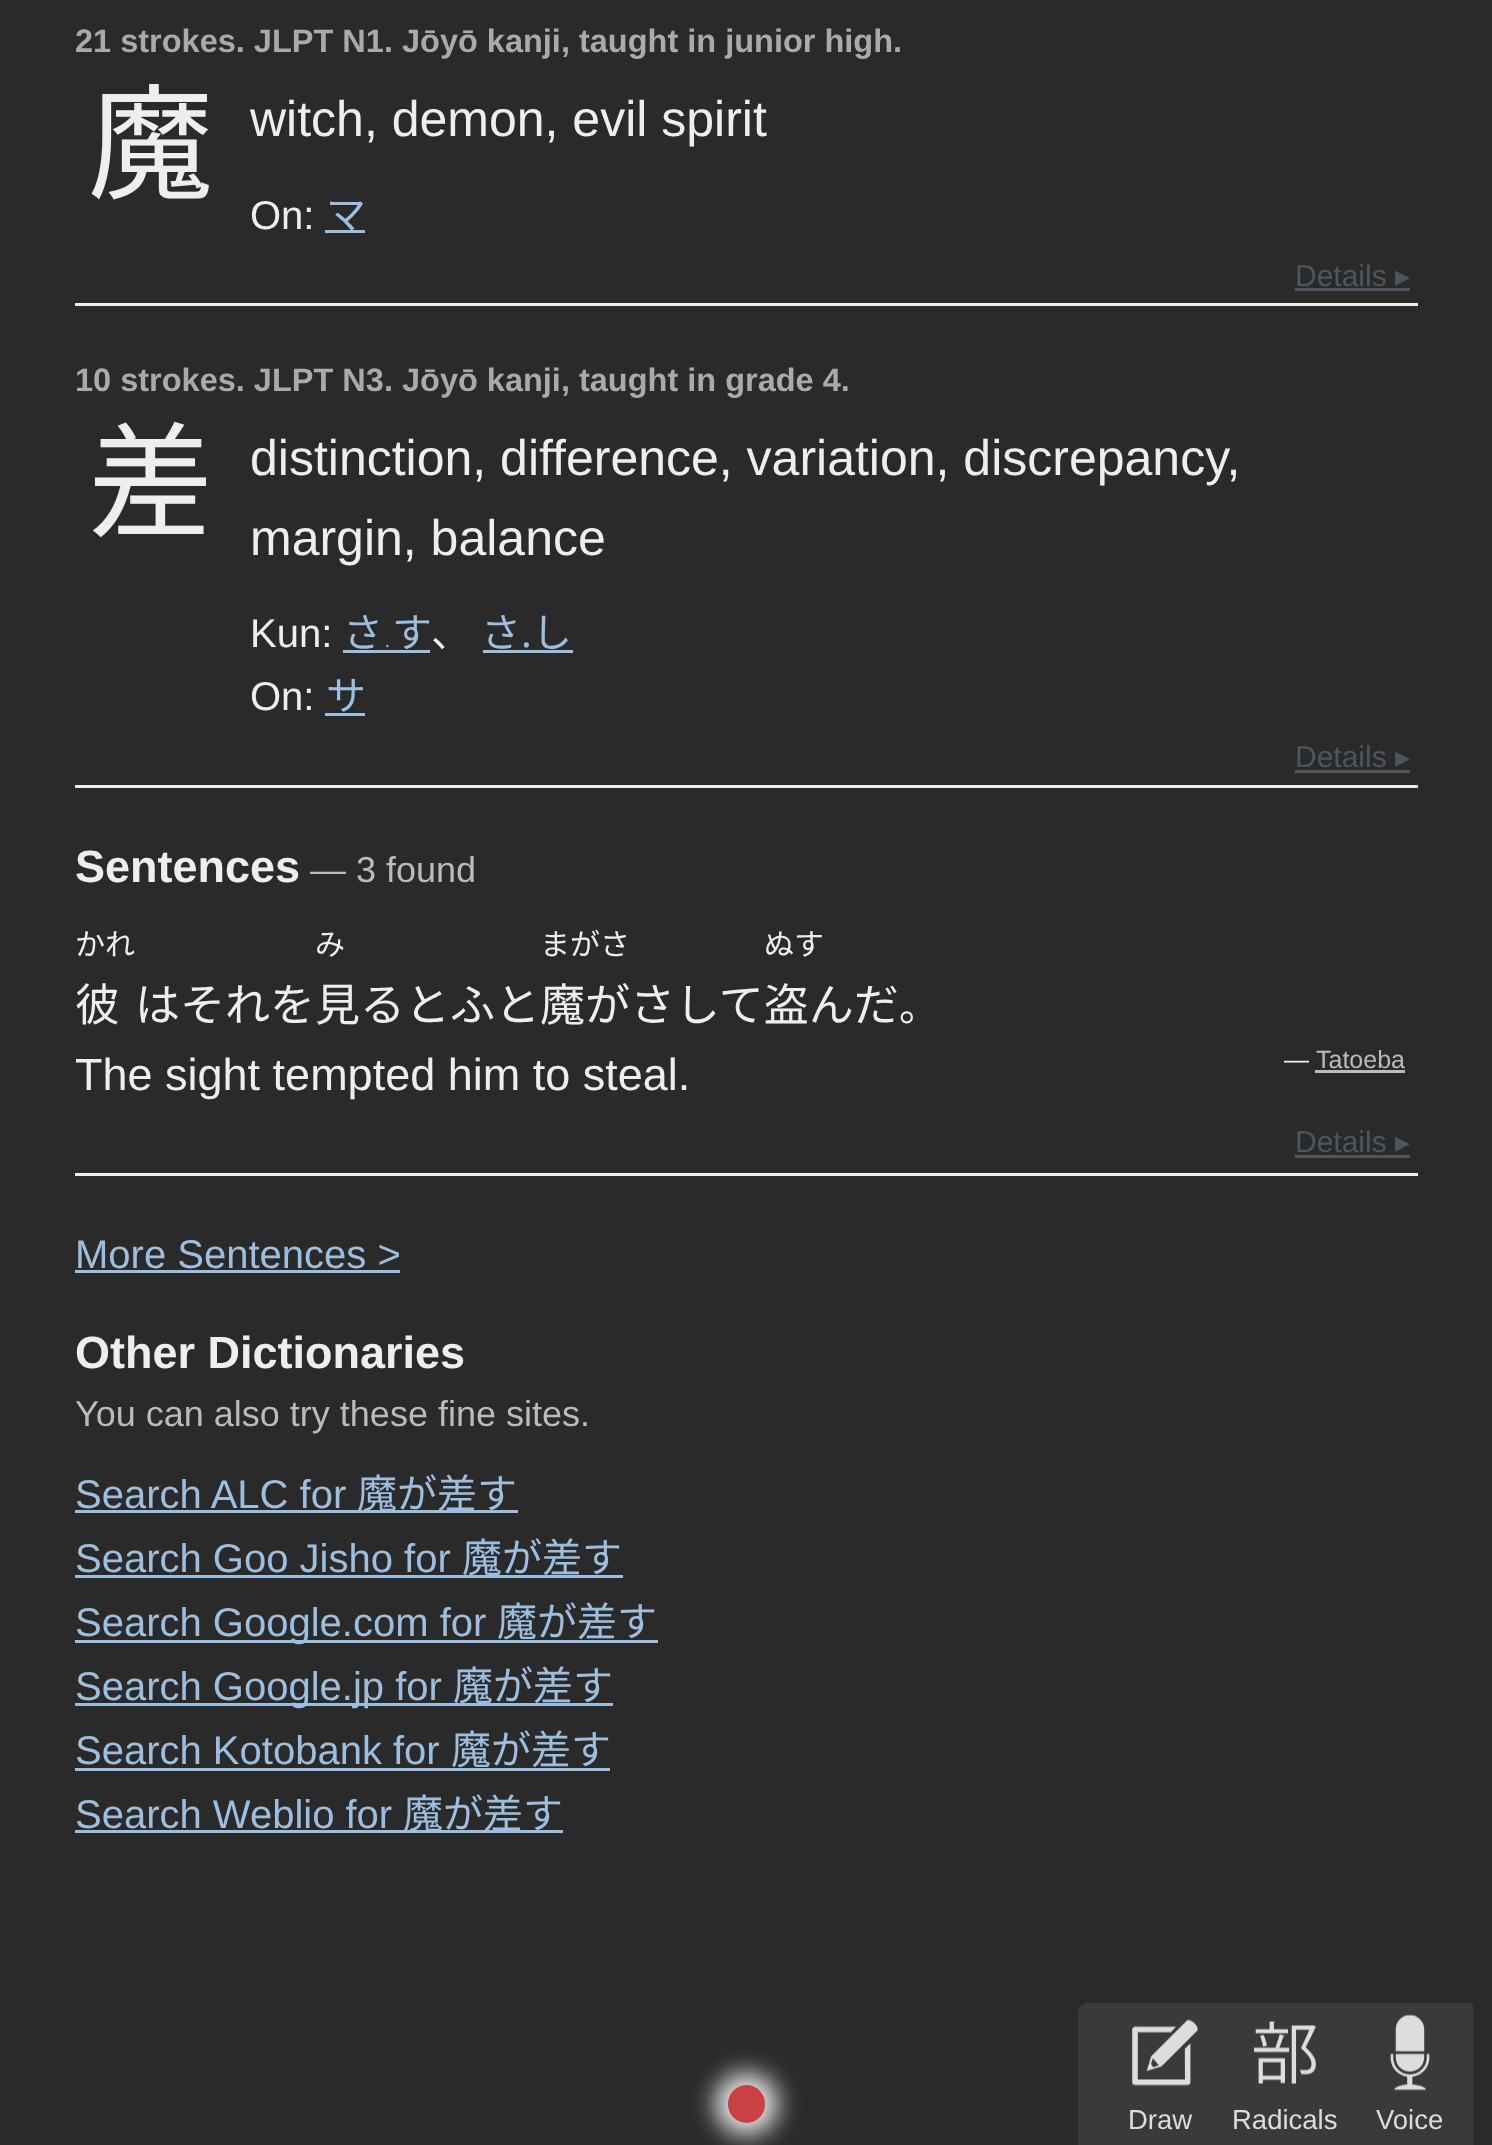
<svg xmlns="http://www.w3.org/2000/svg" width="1492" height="2145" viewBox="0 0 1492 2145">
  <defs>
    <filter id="blur1" x="-50%" y="-200%" width="200%" height="500%"><feGaussianBlur stdDeviation="12.5"/></filter>
  </defs>
  <rect width="100%" height="100%" fill="#2a2a2a"/>
  <rect x="75" y="303" width="1343" height="3" fill="#eeeeee"/>
  <text x="75" y="52" font-family="Liberation Sans" font-size="32.5" font-weight="bold" fill="#aaaaaa">21 strokes. JLPT N1. Jōyō kanji, taught in junior high.</text>
  <text x="88" y="189" font-family="Noto Sans CJK JP" font-size="125" fill="#eeeeee">魔</text>
  <text x="250" y="136" font-family="Liberation Sans" font-size="50" fill="#eeeeee">witch, demon, evil spirit</text>
  <text x="250" y="229" font-family="Liberation Sans" font-size="40" fill="#eeeeee">On:</text>
  <rect x="325" y="230" width="40" height="3" fill="#9cbedf"/>
  <text x="326" y="229" font-family="Noto Sans CJK JP" font-size="40" fill="#9cbedf">マ</text>
  <text x="1295" y="286" font-family="Liberation Sans" font-size="30" fill="#4c5660">Details</text>
  <text x="1395" y="286" font-family="DejaVu Sans" font-size="30" fill="#4c5660">▸</text>
  <rect x="1295" y="288" width="115" height="3" fill="#4c5660"/>
  <rect x="75" y="785" width="1343" height="3" fill="#eeeeee"/>
  <text x="75" y="391" font-family="Liberation Sans" font-size="32.5" font-weight="bold" fill="#aaaaaa">10 strokes. JLPT N3. Jōyō kanji, taught in grade 4.</text>
  <text x="88" y="527" font-family="Noto Sans CJK JP" font-size="125" fill="#eeeeee">差</text>
  <text x="250" y="475" font-family="Liberation Sans" font-size="50" fill="#eeeeee">distinction, difference, variation, discrepancy,</text>
  <text x="250" y="555" font-family="Liberation Sans" font-size="50" fill="#eeeeee">margin, balance</text>
  <text x="250" y="647" font-family="Liberation Sans" font-size="40" fill="#eeeeee">Kun:</text>
  <text x="343" y="647" font-family="Noto Sans CJK JP" font-size="40" fill="#9cbedf">さ す</text>
  <text x="431" y="647" font-family="Noto Sans CJK JP" font-size="40" fill="#eeeeee">、</text>
  <text x="481" y="647" font-family="Noto Sans CJK JP" font-size="40" fill="#9cbedf">さ</text>
  <text x="521" y="647" font-family="Noto Sans" font-size="40" fill="#9cbedf">.</text>
  <rect x="483" y="650" width="90" height="3" fill="#9cbedf"/>
  <text x="532" y="647" font-family="Noto Sans CJK JP" font-size="40" fill="#9cbedf">し</text>
  <text x="383" y="647" font-family="Noto Sans" font-size="40" font-weight="100" fill="#9cbedf">.</text>
  <rect x="343" y="650" width="87" height="3" fill="#9cbedf"/>
  <text x="250" y="710" font-family="Liberation Sans" font-size="40" fill="#eeeeee">On:</text>
  <text x="326" y="710" font-family="Noto Sans CJK JP" font-size="40" fill="#9cbedf">サ</text>
  <rect x="325" y="713" width="40" height="3" fill="#9cbedf"/>
  <text x="1295" y="767" font-family="Liberation Sans" font-size="30" fill="#4c5660">Details</text>
  <text x="1395" y="767" font-family="DejaVu Sans" font-size="30" fill="#4c5660">▸</text>
  <rect x="1295" y="770" width="115" height="3" fill="#4c5660"/>
  <text x="75" y="882" font-family="Liberation Sans" font-size="45" font-weight="bold" fill="#eeeeee">Sentences</text>
  <text x="310" y="882" font-family="Liberation Sans" font-size="36" fill="#bbbbbb">— 3 found</text>
  <rect x="75" y="1173" width="1343" height="3" fill="#eeeeee"/>
  <text x="75" y="955" font-family="Noto Sans CJK JP" font-size="30" fill="#eeeeee">かれ</text>
  <text x="75" y="1021" font-family="Noto Sans CJK JP" font-size="45" fill="#eeeeee">彼</text>
  <text x="315" y="955" font-family="Noto Sans CJK JP" font-size="30" fill="#eeeeee">み</text>
  <text x="540" y="955" font-family="Noto Sans CJK JP" font-size="30" fill="#eeeeee">まがさ</text>
  <text x="764" y="955" font-family="Noto Sans CJK JP" font-size="30" fill="#eeeeee">ぬす</text>
  <text x="135" y="1021" font-family="Noto Sans CJK JP" font-size="45" fill="#eeeeee">はそれを見るとふと魔がさして盗んだ</text>
  <text x="899" y="1021" font-family="Noto Sans CJK JP" font-size="40" fill="#eeeeee">。</text>
  <text x="75" y="1090" font-family="Liberation Sans" font-size="45" fill="#eeeeee">The sight tempted him to steal.</text>
  <text x="1284" y="1068" font-family="Liberation Sans" font-size="25" fill="#eeeeee">—</text>
  <text x="1316" y="1068" font-family="Liberation Sans" font-size="25" fill="#bbbbbb">Tatoeba</text>
  <rect x="1315" y="1070" width="90" height="3" fill="#bbbbbb"/>
  <text x="1295" y="1152" font-family="Liberation Sans" font-size="30" fill="#4c5660">Details</text>
  <text x="1395" y="1152" font-family="DejaVu Sans" font-size="30" fill="#4c5660">▸</text>
  <rect x="1295" y="1155" width="115" height="3" fill="#4c5660"/>
  <text x="75" y="1268" font-family="Liberation Sans" font-size="40" fill="#9cbedf">More Sentences &gt;</text>
  <rect x="75" y="1270" width="325" height="3" fill="#9cbedf"/>
  <text x="75" y="1368" font-family="Liberation Sans" font-size="45" font-weight="bold" fill="#eeeeee">Other Dictionaries</text>
  <text x="75" y="1426" font-family="Liberation Sans" font-size="36" fill="#bbbbbb">You can also try these fine sites.</text>
  <text x="75" y="1508" font-family="Liberation Sans" font-size="40" fill="#9cbedf">Search ALC for</text>
  <rect x="75" y="1510" width="443" height="3" fill="#9cbedf"/>
  <text x="357" y="1508" font-family="Noto Sans CJK JP" font-size="40" fill="#9cbedf">魔が差す</text>
  <text x="75" y="1572" font-family="Liberation Sans" font-size="40" fill="#9cbedf">Search Goo Jisho for</text>
  <rect x="75" y="1575" width="548" height="3" fill="#9cbedf"/>
  <text x="462" y="1572" font-family="Noto Sans CJK JP" font-size="40" fill="#9cbedf">魔が差す</text>
  <rect x="75" y="1640" width="583" height="3" fill="#9cbedf"/>
  <text x="75" y="1636" font-family="Liberation Sans" font-size="40" fill="#9cbedf">Search Google.com for</text>
  <text x="497" y="1636" font-family="Noto Sans CJK JP" font-size="40" fill="#9cbedf">魔が差す</text>
  <rect x="75" y="1703" width="538" height="3" fill="#9cbedf"/>
  <text x="75" y="1700" font-family="Liberation Sans" font-size="40" fill="#9cbedf">Search Google.jp for</text>
  <text x="453" y="1700" font-family="Noto Sans CJK JP" font-size="40" fill="#9cbedf">魔が差す</text>
  <text x="75" y="1764" font-family="Liberation Sans" font-size="40" fill="#9cbedf">Search Kotobank for</text>
  <rect x="75" y="1768" width="535" height="3" fill="#9cbedf"/>
  <text x="451" y="1764" font-family="Noto Sans CJK JP" font-size="40" fill="#9cbedf">魔が差す</text>
  <text x="75" y="1828" font-family="Liberation Sans" font-size="40" fill="#9cbedf">Search Weblio for</text>
  <rect x="75" y="1830" width="488" height="3" fill="#9cbedf"/>
  <text x="403" y="1828" font-family="Noto Sans CJK JP" font-size="40" fill="#9cbedf">魔が差す</text>
  <rect x="715" y="2073" width="63" height="62" rx="31" fill="#ffffff" fill-opacity="0.9" filter="url(#blur1)"/>
  <rect x="728" y="2085" width="37" height="38" rx="18.5" fill="#cb4042"/>
  <path d="M1088 2003H1473V2145H1078V2013C1078 2007.5 1082.5 2003 1088 2003Z" fill="#3a3a3a"/>
  <image x="1132" y="2019" width="66" height="67" href="img1.png"/>
  <text x="1128" y="2129" font-family="Liberation Sans" font-size="27.5" fill="#dddddd">Draw</text>
  <image x="1254" y="2021" width="62" height="63" href="img2.png"/>
  <text x="1232" y="2129" font-family="Liberation Sans" font-size="27.5" fill="#dddddd">Radicals</text>
  <image x="1390" y="2014" width="40" height="77" href="img3.png"/>
  <text x="1376" y="2129" font-family="Liberation Sans" font-size="27.5" fill="#dddddd">Voice</text>
</svg>
